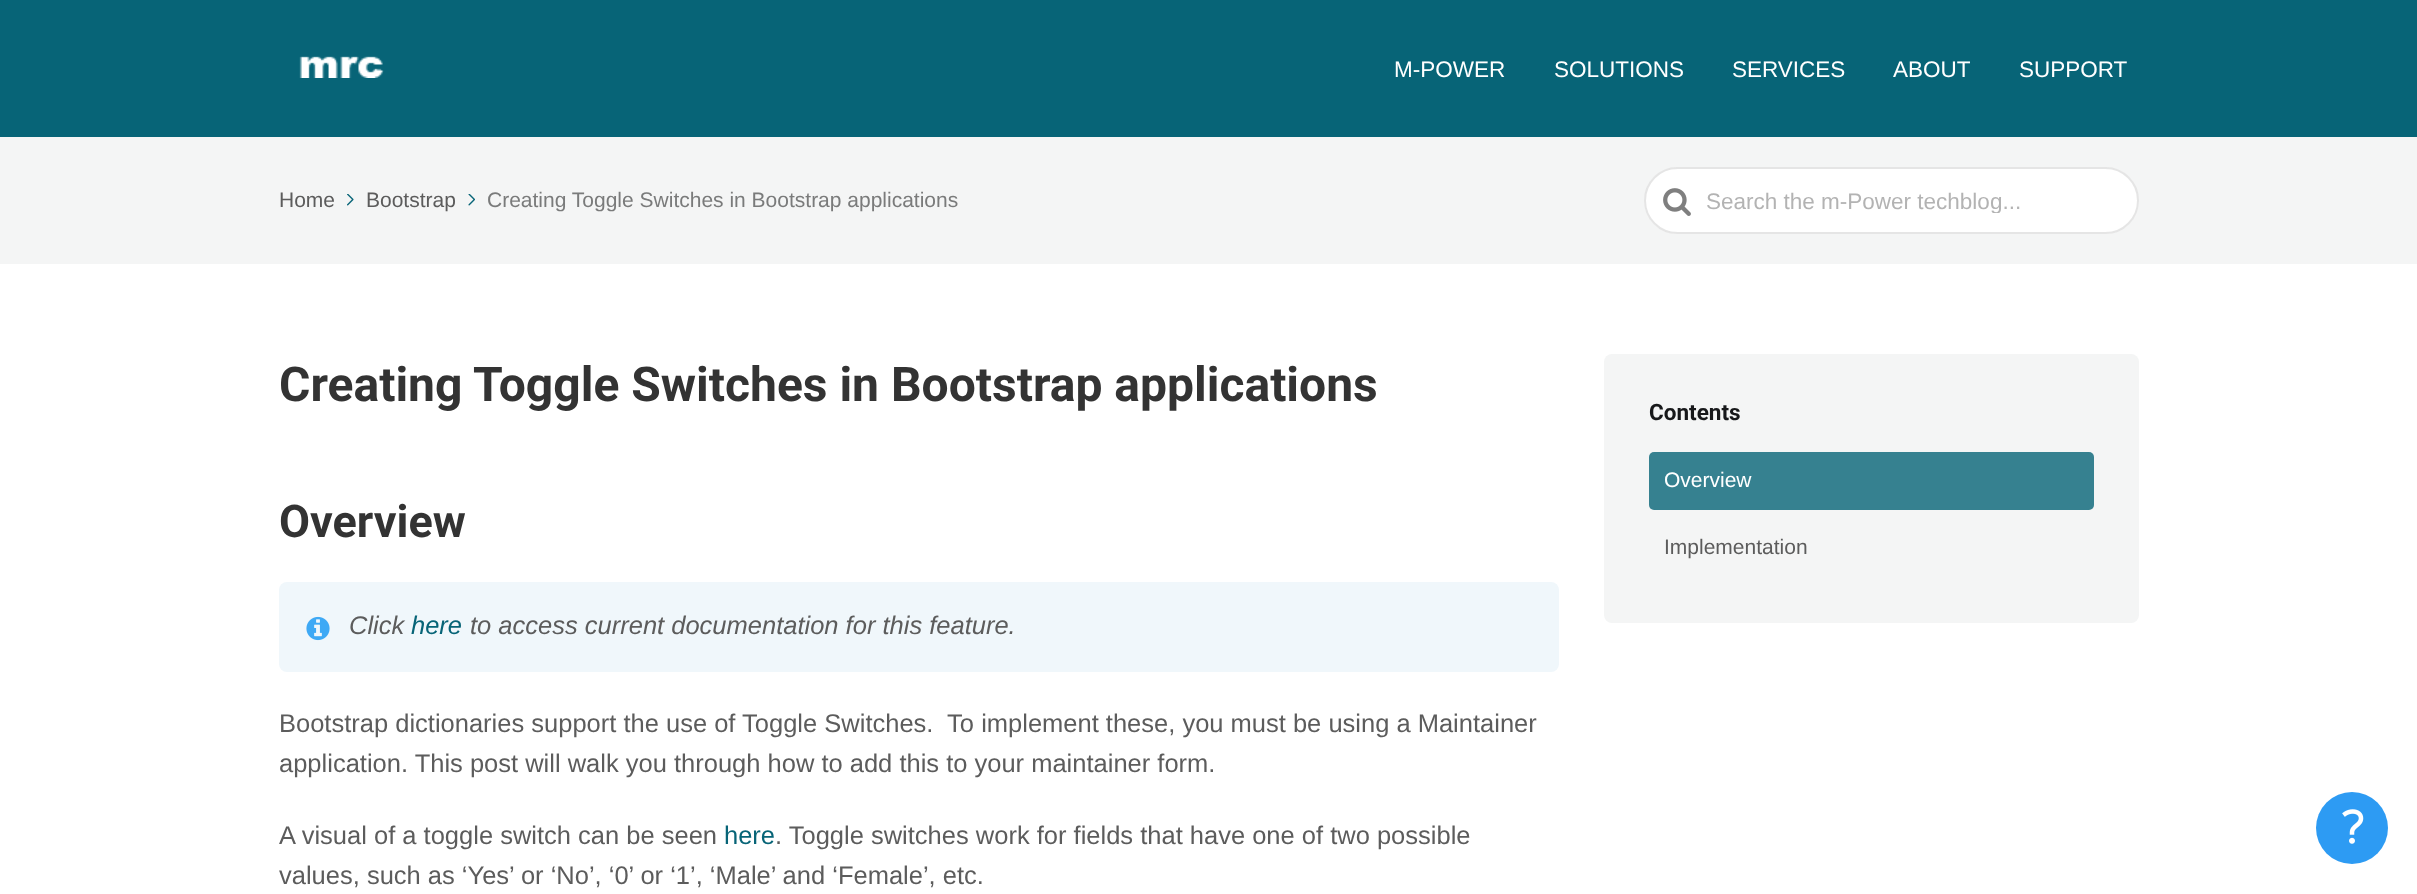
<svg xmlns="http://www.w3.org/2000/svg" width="2417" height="894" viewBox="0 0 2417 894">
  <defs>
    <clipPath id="clip1"><rect x="1706" y="188" width="409" height="25"/></clipPath>
  </defs>
  <rect width="100%" height="100%" fill="#ffffff"/>
  <rect x="0" y="0" width="2417" height="137" fill="#076477"/>
  <image x="299" y="56" width="85" height="22" href="img1.png"/>
  <text x="1394" y="77" font-family="Liberation Sans" font-size="22.5" fill="#ffffff">M-POWER</text>
  <text x="1554" y="77" font-family="Liberation Sans" font-size="22.5" fill="#ffffff">SOLUTIONS</text>
  <text x="1732" y="77" font-family="Liberation Sans" font-size="22.5" fill="#ffffff">SERVICES</text>
  <text x="1893" y="77" font-family="Liberation Sans" font-size="22.5" fill="#ffffff">ABOUT</text>
  <text x="2019" y="77" font-family="Liberation Sans" font-size="22.5" fill="#ffffff">SUPPORT</text>
  <rect x="0" y="137" width="2417" height="127" fill="#f4f5f5"/>
  <text x="279" y="207" font-family="Liberation Sans" font-size="21" fill="#5c5c5c">Home</text>
  <image x="347" y="194" width="7" height="12" href="img2.png"/>
  <text x="366" y="207" font-family="Liberation Sans" font-size="21" fill="#5c5c5c">Bootstrap</text>
  <image x="468" y="194" width="7" height="12" href="img3.png"/>
  <text x="487" y="207" font-family="Liberation Sans" font-size="21" fill="#7a7b7b">Creating Toggle Switches in Bootstrap applications</text>
  <rect x="1644" y="167" width="495" height="67" rx="33.5" fill="#ffffff"/>
  <rect x="1645" y="168" width="493" height="65" rx="32.5" fill="none" stroke="#cccccc" stroke-opacity="0.5" stroke-width="2"/>
  <image x="1663" y="188" width="28" height="28" href="img4.png"/>
  <g clip-path="url(#clip1)">
    <text x="1706" y="209" font-family="Liberation Sans" font-size="22.5" fill="#b3b3b3">Search the m-Power techblog...</text>
  </g>
  <text x="279" y="401" font-family="Roboto" font-size="48" font-weight="bold" fill="#333333">Creating Toggle Switches in Bootstrap applications</text>
  <text x="279" y="537" font-family="Roboto" font-size="45" font-weight="bold" fill="#333333">Overview</text>
  <rect x="279" y="582" width="1280" height="90" rx="8" fill="#f0f7fb"/>
  <image x="306" y="616" width="24" height="25" href="img5.png"/>
  <text x="349" y="634" font-family="Liberation Sans" font-size="25.5" font-style="italic" fill="#5c5c5c">Click</text>
  <text x="411" y="634" font-family="Liberation Sans" font-size="25.5" font-style="italic" fill="#076477">here</text>
  <text x="470" y="634" font-family="Liberation Sans" font-size="25.5" font-style="italic" fill="#5c5c5c">to access current documentation for this feature.</text>
  <text x="279" y="732" font-family="Liberation Sans" font-size="25.5" fill="#5c5c5c" xml:space="preserve">Bootstrap dictionaries support the use of Toggle Switches.  To implement these, you must be using a Maintainer</text>
  <text x="279" y="772" font-family="Liberation Sans" font-size="25.5" fill="#5c5c5c">application. This post will walk you through how to add this to your maintainer form.</text>
  <text x="279" y="844" font-family="Liberation Sans" font-size="25.5" fill="#5c5c5c">A visual of a toggle switch can be seen</text>
  <text x="724" y="844" font-family="Liberation Sans" font-size="25.5" fill="#076477">here</text>
  <text x="775" y="844" font-family="Liberation Sans" font-size="25.5" fill="#5c5c5c">. Toggle switches work for fields that have one of two possible</text>
  <text x="279" y="884" font-family="Liberation Sans" font-size="25.5" fill="#5c5c5c">values, such as ‘Yes’ or ‘No’, ‘0’ or ‘1’, ‘Male’ and ‘Female’, etc.</text>
  <rect x="1604" y="354" width="535" height="269" rx="8" fill="#f4f5f5"/>
  <text x="1649" y="420" font-family="Roboto" font-size="22.5" font-weight="bold" fill="#17181a">Contents</text>
  <rect x="1649" y="452" width="445" height="58" rx="5" fill="#368190"/>
  <text x="1664" y="487" font-family="Liberation Sans" font-size="21" fill="#ffffff">Overview</text>
  <text x="1664" y="554" font-family="Liberation Sans" font-size="21" fill="#5c5c5c">Implementation</text>
  <circle cx="2352" cy="828" r="36" fill="#2d9bf3"/>
  <image x="2342" y="809" width="22" height="35" href="img6.png"/>
</svg>
